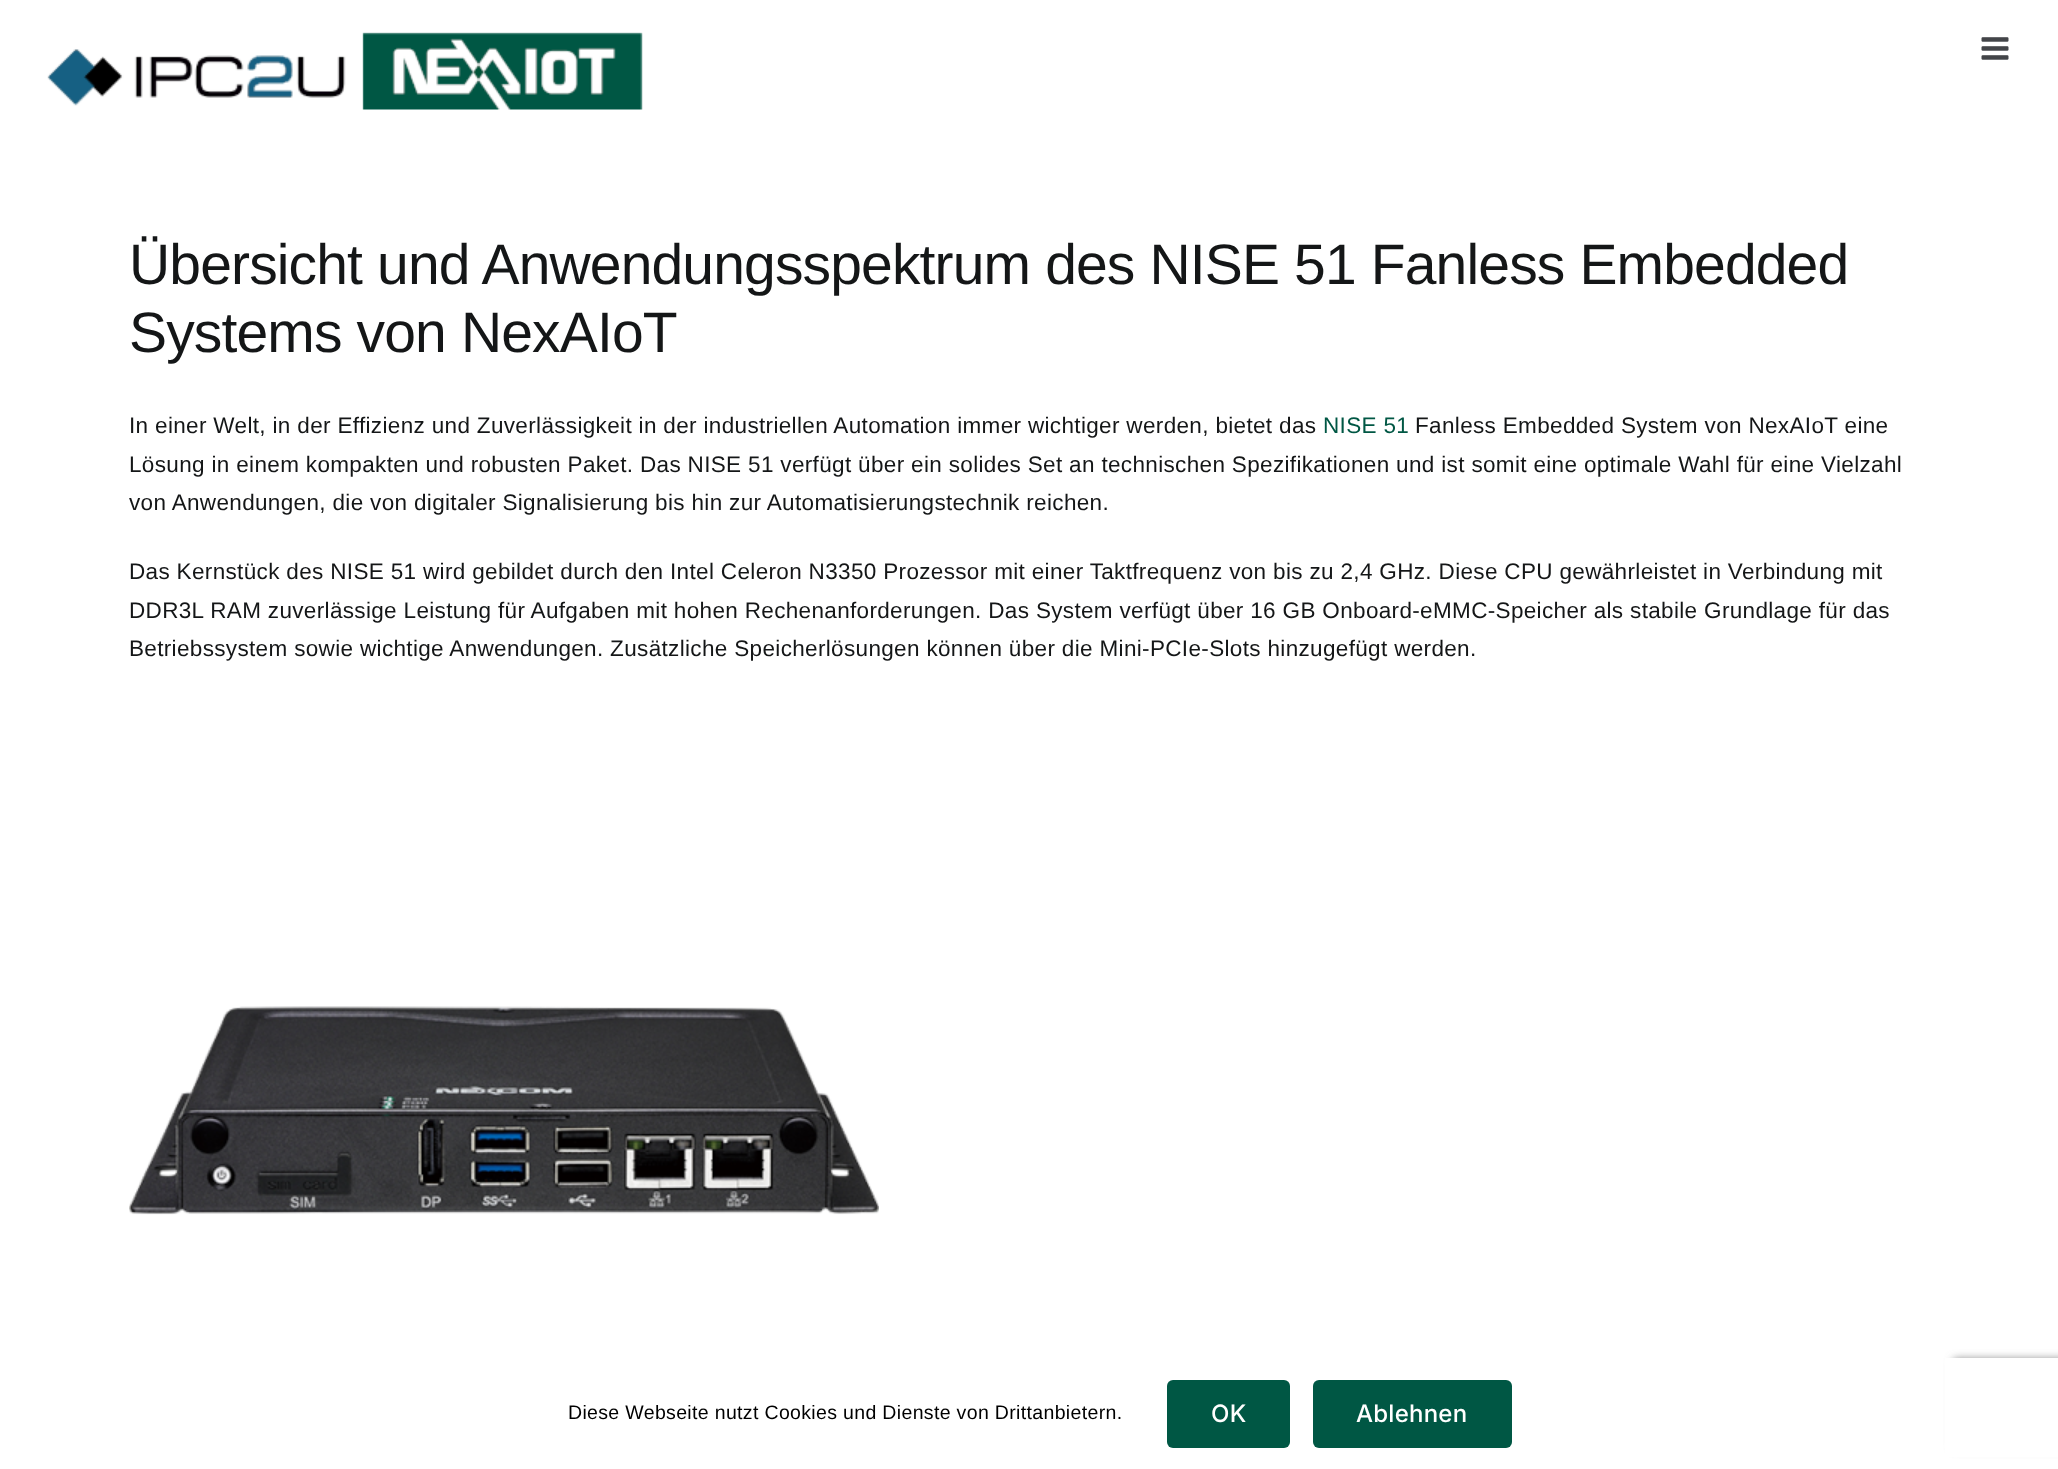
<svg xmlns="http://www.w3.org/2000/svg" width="2058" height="1469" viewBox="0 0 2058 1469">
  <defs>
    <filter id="blur1" x="-50%" y="-200%" width="200%" height="500%"><feGaussianBlur stdDeviation="4"/></filter>
  </defs>
  <rect width="100%" height="100%" fill="#ffffff"/>
  <image x="47" y="32" width="596" height="78" href="img1.png"/>
  <image x="1981" y="37" width="28" height="23" href="img2.png"/>
  <text x="129" y="284" font-family="Liberation Sans" font-size="57" letter-spacing="-0.85" fill="#141617">Übersicht und Anwendungsspektrum des NISE 51 Fanless Embedded</text>
  <text x="129" y="352" font-family="Liberation Sans" font-size="57" letter-spacing="-0.85" fill="#141617">Systems von NexAIoT</text>
  <text x="129" y="433" font-family="Liberation Sans" font-size="22.5" letter-spacing="0.34" fill="#141617">In einer Welt, in der Effizienz und Zuverlässigkeit in der industriellen Automation immer wichtiger werden, bietet das</text>
  <text x="1323" y="433" font-family="Liberation Sans" font-size="22.5" letter-spacing="0.34" fill="#005744">NISE 51</text>
  <text x="1415" y="433" font-family="Liberation Sans" font-size="22.5" letter-spacing="0.34" fill="#141617">Fanless Embedded System von NexAIoT eine</text>
  <text x="129" y="472" font-family="Liberation Sans" font-size="22.5" letter-spacing="0.34" fill="#141617">Lösung in einem kompakten und robusten Paket. Das NISE 51 verfügt über ein solides Set an technischen Spezifikationen und ist somit eine optimale Wahl für eine Vielzahl</text>
  <text x="129" y="510" font-family="Liberation Sans" font-size="22.5" letter-spacing="0.34" fill="#141617">von Anwendungen, die von digitaler Signalisierung bis hin zur Automatisierungstechnik reichen.</text>
  <text x="129" y="579" font-family="Liberation Sans" font-size="22.5" letter-spacing="0.34" fill="#141617">Das Kernstück des NISE 51 wird gebildet durch den Intel Celeron N3350 Prozessor mit einer Taktfrequenz von bis zu 2,4 GHz. Diese CPU gewährleistet in Verbindung mit</text>
  <text x="129" y="618" font-family="Liberation Sans" font-size="22.5" letter-spacing="0.34" fill="#141617">DDR3L RAM zuverlässige Leistung für Aufgaben mit hohen Rechenanforderungen. Das System verfügt über 16 GB Onboard-eMMC-Speicher als stabile Grundlage für das</text>
  <text x="129" y="656" font-family="Liberation Sans" font-size="22.5" letter-spacing="0.34" fill="#141617">Betriebssystem sowie wichtige Anwendungen. Zusätzliche Speicherlösungen können über die Mini-PCIe-Slots hinzugefügt werden.</text>
  <image x="129" y="1006" width="750" height="209" href="img3.png"/>
  <rect x="1953" y="1359" width="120" height="90" rx="3" fill="#808080" filter="url(#blur1)"/>
  <rect x="1945" y="1358" width="113" height="99" fill="#ffffff"/>
  <text x="568" y="1419" font-family="Liberation Sans" font-size="19.5" letter-spacing="0.34" fill="#000000">Diese Webseite nutzt Cookies und Dienste von Drittanbietern.</text>
  <rect x="1167" y="1380" width="123" height="68" rx="6" fill="#005744"/>
  <text x="1211" y="1422" font-family="Inter" font-size="24" font-weight="500" letter-spacing="0.25" fill="#ffffff">OK</text>
  <rect x="1313" y="1380" width="199" height="68" rx="6" fill="#005744"/>
  <text x="1356" y="1422" font-family="Inter" font-size="24" font-weight="500" letter-spacing="0.25" fill="#ffffff">Ablehnen</text>
</svg>
